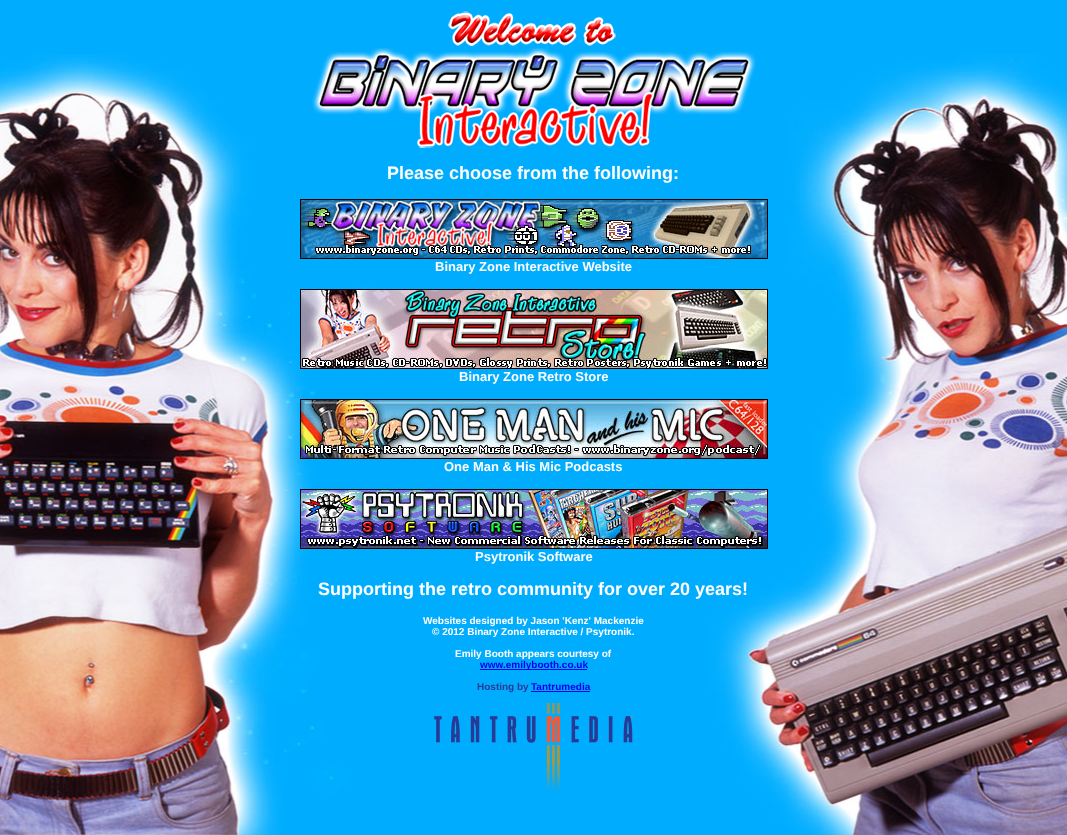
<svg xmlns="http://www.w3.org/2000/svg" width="1067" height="835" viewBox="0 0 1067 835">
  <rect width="100%" height="100%" fill="#00acfe"/>
  <image x="0" y="54" width="1067" height="781" href="img1.png"/>
  <image x="448" y="11" width="168" height="35" href="img2.png"/>
  <image x="312" y="48" width="444" height="100" href="img3.png"/>
  <text x="387" y="179" font-family="Liberation Sans" font-size="18" font-weight="bold" fill="#ffffff">Please choose from the following:</text>
  <image x="300" y="199" width="468" height="60" href="img4.png"/>
  <text x="435" y="271" font-family="Liberation Sans" font-size="13" font-weight="bold" fill="#ffffff">Binary Zone Interactive Website</text>
  <image x="300" y="289" width="468" height="80" href="img5.png"/>
  <text x="459" y="381" font-family="Liberation Sans" font-size="13" font-weight="bold" fill="#ffffff">Binary Zone Retro Store</text>
  <image x="300" y="399" width="468" height="60" href="img6.png"/>
  <text x="444" y="471" font-family="Liberation Sans" font-size="13" font-weight="bold" fill="#ffffff">One Man &amp; His Mic Podcasts</text>
  <image x="300" y="489" width="468" height="60" href="img7.png"/>
  <text x="475" y="561" font-family="Liberation Sans" font-size="13" font-weight="bold" fill="#ffffff">Psytronik Software</text>
  <text x="318" y="595" font-family="Liberation Sans" font-size="18" font-weight="bold" fill="#ffffff">Supporting the retro community for over 20 years!</text>
  <text x="423" y="624" font-family="Liberation Sans" font-size="10" font-weight="bold" fill="#ffffff">Websites designed by Jason 'Kenz' Mackenzie</text>
  <text x="432" y="635" font-family="Liberation Sans" font-size="10" font-weight="bold" fill="#ffffff">© 2012 Binary Zone Interactive / Psytronik.</text>
  <text x="455" y="657" font-family="Liberation Sans" font-size="10" font-weight="bold" fill="#ffffff">Emily Booth appears courtesy of</text>
  <rect x="480" y="669" width="107" height="1" fill="#0000ee"/>
  <text x="480" y="668" font-family="Liberation Sans" font-size="10" font-weight="bold" fill="#0000ee">www.emilybooth.co.uk</text>
  <text x="477" y="690" font-family="Liberation Sans" font-size="10" font-weight="bold" fill="#263a96">Hosting by</text>
  <rect x="531" y="691" width="59" height="1" fill="#0000ee"/>
  <text x="531" y="690" font-family="Liberation Sans" font-size="10" font-weight="bold" fill="#0000ee">Tantrumedia</text>
  <image x="434" y="703" width="200" height="90" href="img8.png"/>
</svg>
